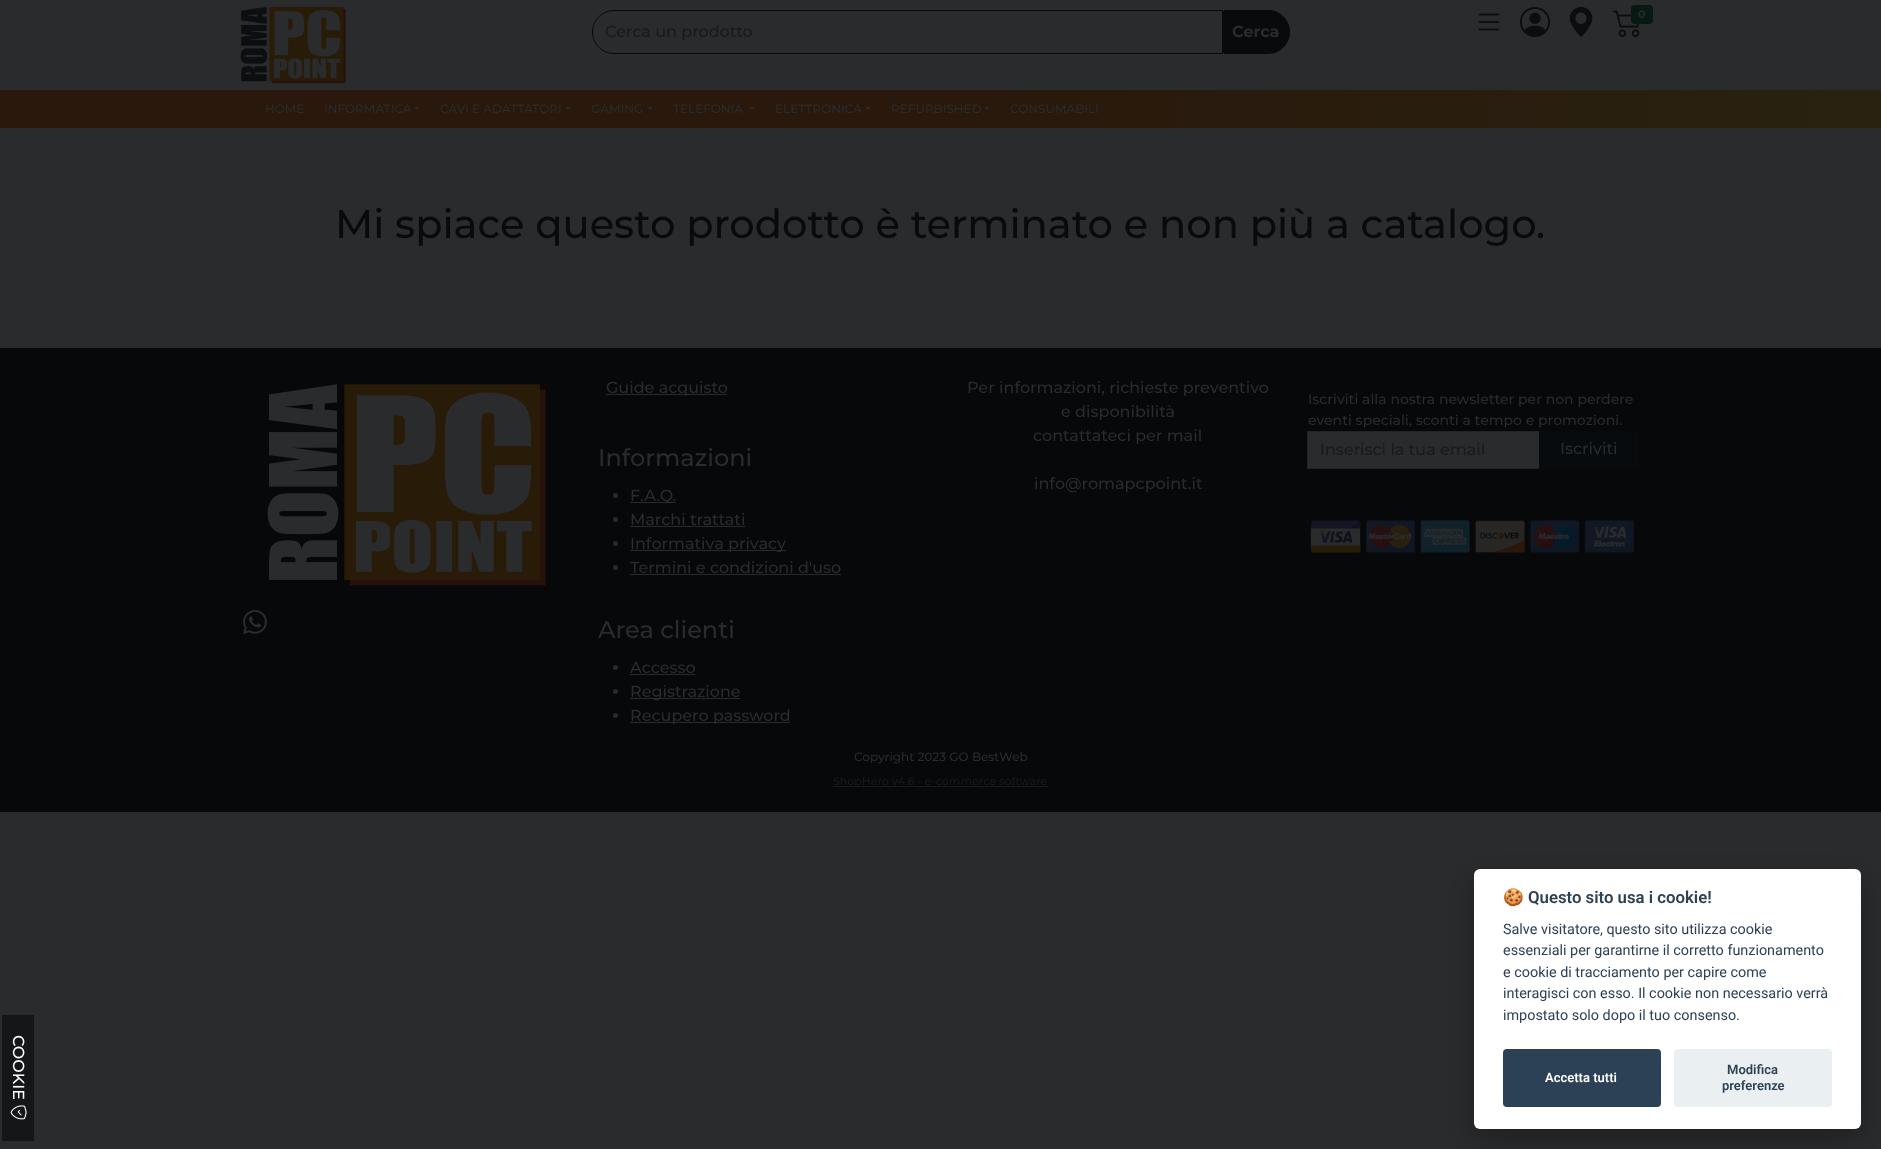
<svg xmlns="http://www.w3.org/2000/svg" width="1881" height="1149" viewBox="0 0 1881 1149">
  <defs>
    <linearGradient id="g1" gradientUnits="userSpaceOnUse" x1="0" y1="109" x2="1881" y2="109"><stop offset="0.5" stop-color="#29180b"/><stop offset="1" stop-color="#292211"/></linearGradient>
    <filter id="blur1" x="-50%" y="-200%" width="200%" height="500%"><feGaussianBlur stdDeviation="15"/></filter>
  </defs>
  <rect width="100%" height="100%" fill="#2a2b2d"/>
  <image x="240" y="6" width="106" height="78" href="img1.png"/>
  <image x="1478" y="13" width="22" height="18" href="img2.png"/>
  <image x="1520" y="7" width="30" height="30" href="img3.png"/>
  <image x="1569" y="7" width="24" height="30" href="img4.png"/>
  <image x="1613" y="10" width="27" height="27" href="img5.png"/>
  <rect x="1631" y="5" width="22" height="19" rx="4" fill="#071913"/>
  <text x="1638" y="18" font-family="Montserrat" font-size="11" font-weight="bold" fill="#2a2b2d">0</text>
  <path d="M1226 10H1268C1280 10 1290 20 1290 32C1290 44 1280 54 1268 54H1226C1224 54 1222 52 1222 50V14C1222 12 1224 10 1226 10Z" fill="#090a0c"/>
  <path d="M614 10.5H1222.5V53.5H614C602 53.5 592.5 44 592.5 32C592.5 20 602 10.5 614 10.5Z" fill="none" stroke="#090a0c"/>
  <text x="605" y="37" font-family="Montserrat" font-size="16" font-weight="500" fill="#181a1b">Cerca un prodotto</text>
  <text x="1232" y="37" font-family="Montserrat" font-size="16" font-weight="bold" fill="#2a2b2d">Cerca</text>
  <rect x="0" y="90" width="1881" height="38" fill="url(#g1)"/>
  <text x="265" y="113" font-family="Montserrat" font-size="12" font-weight="500" fill="#2a2b2d">HOME</text>
  <text x="324" y="113" font-family="Montserrat" font-size="12" font-weight="500" fill="#2a2b2d">INFORMATICA</text>
  <path d="M414 107H420L417 110Z" fill="#2a2b2d"/>
  <text x="440" y="113" font-family="Montserrat" font-size="12" font-weight="500" fill="#2a2b2d">CAVI E ADATTATORI</text>
  <path d="M565 107H571L568 110Z" fill="#2a2b2d"/>
  <text x="591" y="113" font-family="Montserrat" font-size="12" font-weight="500" fill="#2a2b2d">GAMING</text>
  <path d="M647 107H653L650 110Z" fill="#2a2b2d"/>
  <text x="673" y="113" font-family="Montserrat" font-size="12" font-weight="500" fill="#2a2b2d">TELEFONIA</text>
  <path d="M749 107H755L752 110Z" fill="#2a2b2d"/>
  <text x="775" y="113" font-family="Montserrat" font-size="12" font-weight="500" fill="#2a2b2d">ELETTRONICA</text>
  <path d="M865 107H871L868 110Z" fill="#2a2b2d"/>
  <text x="891" y="113" font-family="Montserrat" font-size="12" font-weight="500" fill="#2a2b2d">REFURBISHED</text>
  <path d="M984 107H990L987 110Z" fill="#2a2b2d"/>
  <text x="1010" y="113" font-family="Montserrat" font-size="12" font-weight="500" fill="#2a2b2d">CONSUMABILI</text>
  <text x="335" y="238" font-family="Montserrat" font-size="40" font-weight="500" fill="#080b0d">Mi spiace questo prodotto è terminato e non più a catalogo.</text>
  <rect x="0" y="348" width="1881" height="464" fill="#060809"/>
  <image x="267" y="384" width="279" height="202" href="img6.png"/>
  <image x="243" y="610" width="24" height="24" href="img7.png"/>
  <rect x="606" y="394" width="121" height="1" fill="#2a2b2d"/>
  <text x="606" y="393" font-family="Montserrat" font-size="16" font-weight="500" fill="#2a2b2d">Guide acquisto</text>
  <text x="598" y="466" font-family="Montserrat" font-size="24" font-weight="500" fill="#2a2b2d">Informazioni</text>
  <circle cx="615.5" cy="495.5" r="2.5" fill="#2a2b2d"/>
  <rect x="630" y="502" width="46" height="1" fill="#2a2b2d"/>
  <text x="630" y="501" font-family="Montserrat" font-size="16" font-weight="500" fill="#2a2b2d">F.A.Q.</text>
  <circle cx="615.5" cy="519.5" r="2.5" fill="#2a2b2d"/>
  <text x="630" y="525" font-family="Montserrat" font-size="16" font-weight="500" fill="#2a2b2d">Marchi trattati</text>
  <rect x="630" y="526" width="115" height="1" fill="#2a2b2d"/>
  <circle cx="615.5" cy="543.5" r="2.5" fill="#2a2b2d"/>
  <rect x="630" y="550" width="156" height="1" fill="#2a2b2d"/>
  <text x="630" y="549" font-family="Montserrat" font-size="16" font-weight="500" fill="#2a2b2d">Informativa privacy</text>
  <circle cx="615.5" cy="567.5" r="2.5" fill="#2a2b2d"/>
  <text x="630" y="573" font-family="Montserrat" font-size="16" font-weight="500" fill="#2a2b2d">Termini e condizioni d'uso</text>
  <rect x="630" y="574" width="211" height="1" fill="#2a2b2d"/>
  <text x="598" y="638" font-family="Montserrat" font-size="24" font-weight="500" fill="#2a2b2d">Area clienti</text>
  <circle cx="615.5" cy="667.5" r="2.5" fill="#2a2b2d"/>
  <text x="630" y="673" font-family="Montserrat" font-size="16" font-weight="500" fill="#2a2b2d">Accesso</text>
  <rect x="630" y="674" width="65" height="1" fill="#2a2b2d"/>
  <circle cx="615.5" cy="691.5" r="2.5" fill="#2a2b2d"/>
  <rect x="630" y="698" width="110" height="1" fill="#2a2b2d"/>
  <text x="630" y="697" font-family="Montserrat" font-size="16" font-weight="500" fill="#2a2b2d">Registrazione</text>
  <circle cx="615.5" cy="715.5" r="2.5" fill="#2a2b2d"/>
  <rect x="630" y="722" width="160" height="1" fill="#2a2b2d"/>
  <text x="630" y="721" font-family="Montserrat" font-size="16" font-weight="500" fill="#2a2b2d">Recupero password</text>
  <text x="967" y="393" font-family="Montserrat" font-size="16" font-weight="500" fill="#2a2b2d">Per informazioni, richieste preventivo</text>
  <text x="1061" y="417" font-family="Montserrat" font-size="16" font-weight="500" fill="#2a2b2d">e disponibilità</text>
  <text x="1033" y="441" font-family="Montserrat" font-size="16" font-weight="500" fill="#2a2b2d">contattateci per mail</text>
  <text x="1034" y="489" font-family="Montserrat" font-size="16" font-weight="500" fill="#2a2b2d">info@romapcpoint.it</text>
  <text x="1308" y="404" font-family="Montserrat" font-size="14" font-weight="500" fill="#2a2b2d">Iscriviti alla nostra newsletter per non perdere</text>
  <text x="1308" y="425" font-family="Montserrat" font-size="14" font-weight="500" fill="#2a2b2d">eventi speciali, sconti a tempo e promozioni.</text>
  <rect x="1307.5" y="431.5" width="232" height="37" fill="#2a2b2d" stroke="#222528"/>
  <text x="1320" y="455" font-family="Montserrat" font-size="16" font-weight="500" fill="#181a1b">Inserisci la tua email</text>
  <rect x="1539" y="431" width="100" height="38" fill="#080b0d"/>
  <text x="1560" y="454" font-family="Montserrat" font-size="16" font-weight="500" fill="#2a2b2d">Iscriviti</text>
  <image x="1310" y="520" width="325" height="33" href="img8.png"/>
  <text x="854" y="761" font-family="Montserrat" font-size="12" font-weight="500" fill="#2a2b2d">Copyright 2023 GO BestWeb</text>
  <rect x="833" y="786" width="215" height="1" fill="#181a1b"/>
  <text x="833" y="785" font-family="Montserrat" font-size="11" font-weight="500" fill="#181a1b">ShopHero v4.6 - e-commerce software</text>
  <rect x="2" y="1015" width="32" height="126" fill="#151617"/>
  <text x="13" y="1035" transform="rotate(90 13 1035)" font-family="Montserrat" font-size="16" font-weight="500" fill="#ffffff">COOKIE</text>
  <image x="10" y="1105" width="17" height="15" href="img9.png"/>
  <rect x="1474" y="879" width="387" height="260" rx="6" fill="#020203" fill-opacity="0.28" filter="url(#blur1)"/>
  <rect x="1474" y="869" width="387" height="260" rx="6" fill="#ffffff"/>
  <text x="1503" y="903" font-family="Noto Color Emoji" font-size="16.75" font-weight="bold" fill="#2d4156">🍪</text>
  <text x="1528" y="903" font-family="Roboto" font-size="16.75" font-weight="600" fill="#2d4156">Questo sito usa i cookie!</text>
  <text x="1503" y="934" font-family="Roboto" font-size="14.4" fill="#2d4156">Salve visitatore, questo sito utilizza cookie</text>
  <text x="1503" y="955" font-family="Roboto" font-size="14.4" fill="#2d4156">essenziali per garantirne il corretto funzionamento</text>
  <text x="1503" y="977" font-family="Roboto" font-size="14.4" fill="#2d4156">e cookie di tracciamento per capire come</text>
  <text x="1503" y="998" font-family="Roboto" font-size="14.4" fill="#2d4156">interagisci con esso. Il cookie non necessario verrà</text>
  <text x="1503" y="1020" font-family="Roboto" font-size="14.4" fill="#2d4156">impostato solo dopo il tuo consenso.</text>
  <rect x="1503" y="1049" width="158" height="58" rx="4" fill="#2d4156"/>
  <text x="1545" y="1082" font-family="Roboto" font-size="13" font-weight="600" fill="#ffffff">Accetta tutti</text>
  <rect x="1674" y="1049" width="158" height="58" rx="4" fill="#eaeff2"/>
  <text x="1727" y="1074" font-family="Roboto" font-size="13" font-weight="600" fill="#2d4156">Modifica</text>
  <text x="1722" y="1090" font-family="Roboto" font-size="13" font-weight="600" fill="#2d4156">preferenze</text>
</svg>
